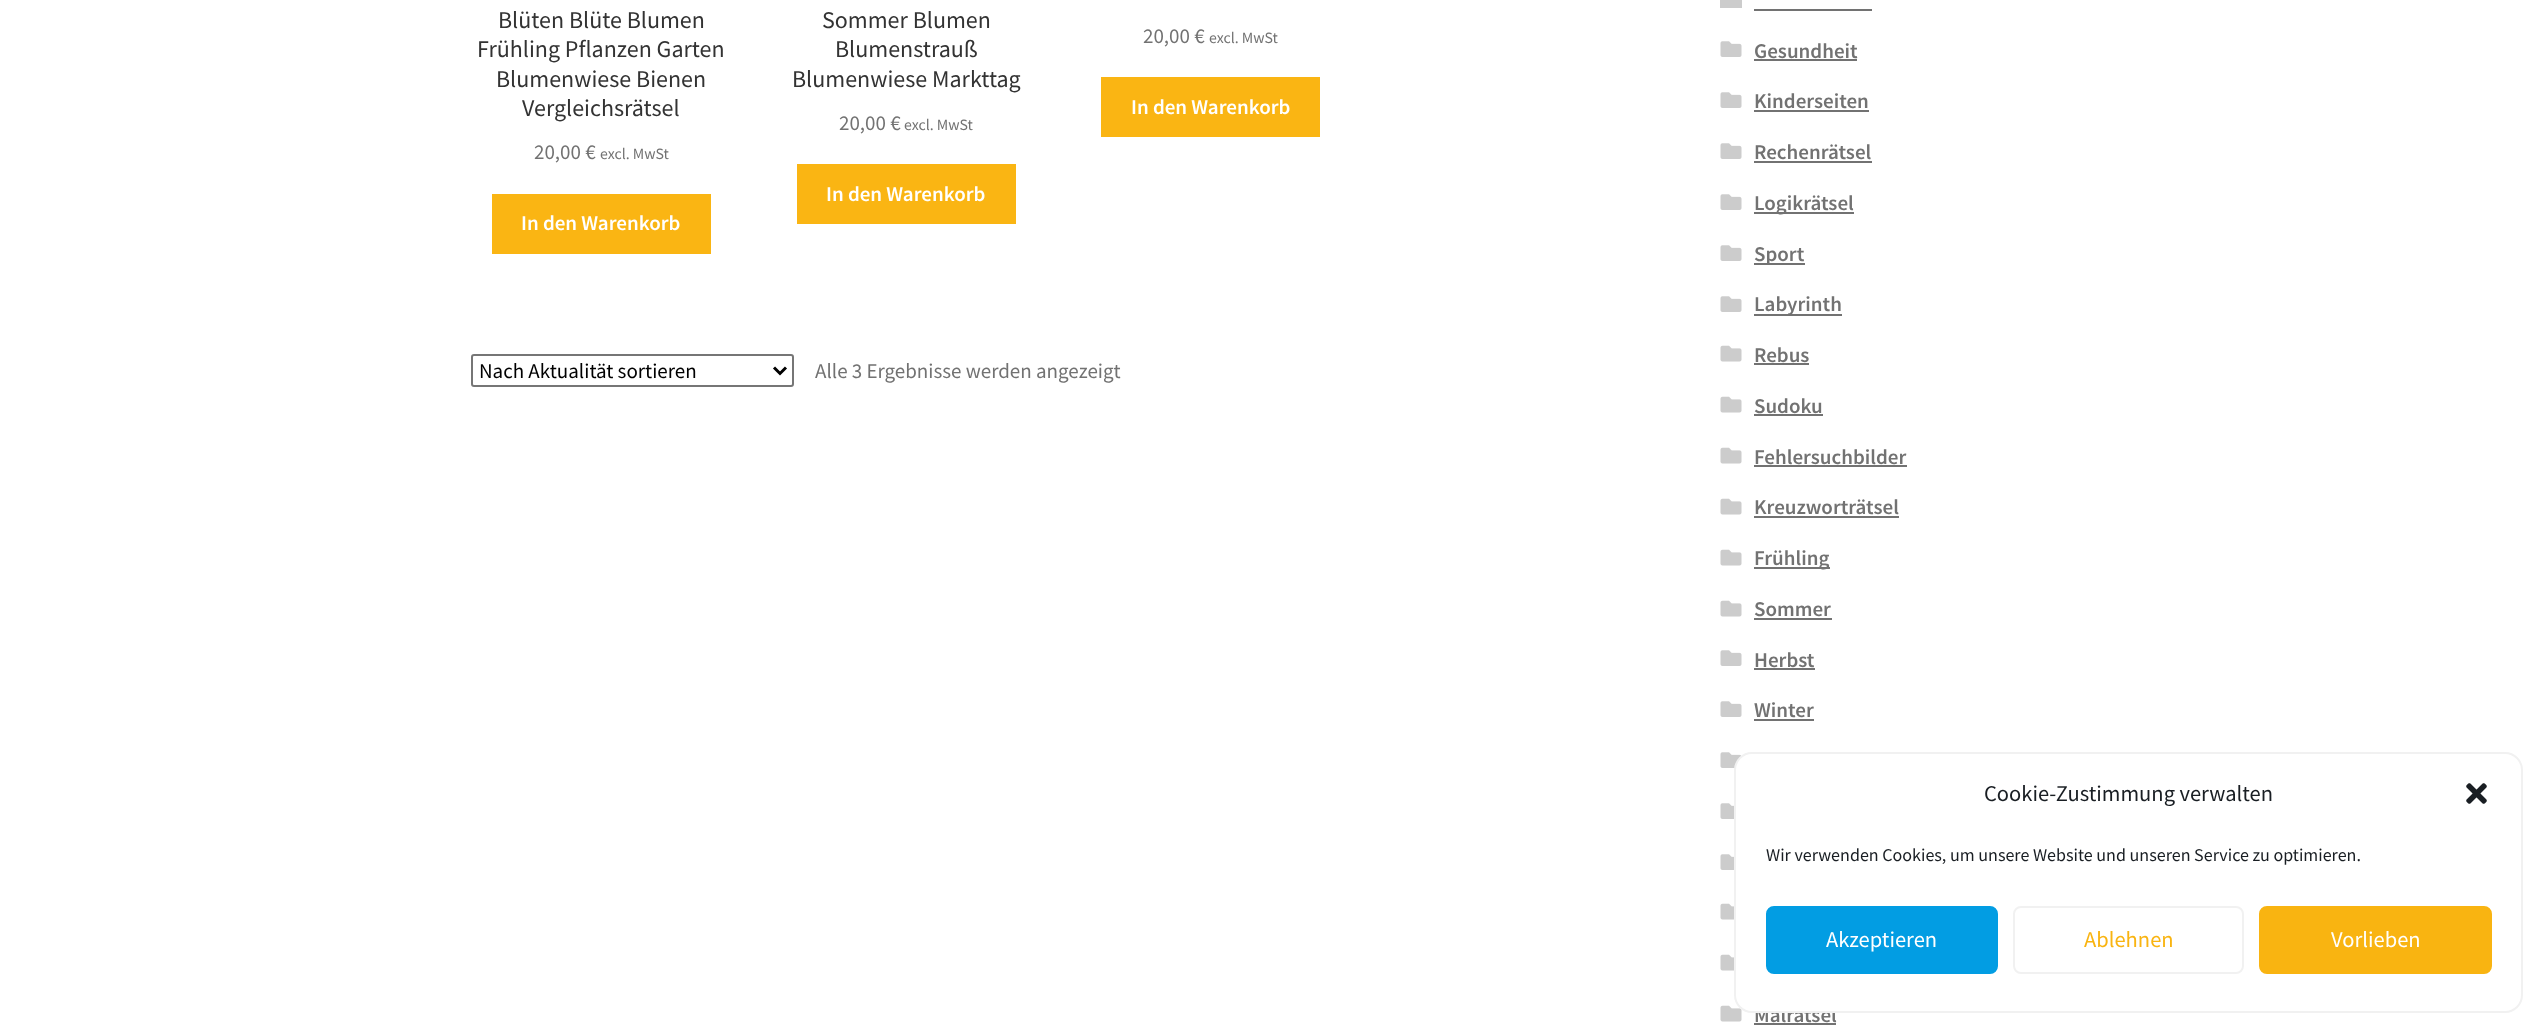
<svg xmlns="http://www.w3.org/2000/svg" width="2538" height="1027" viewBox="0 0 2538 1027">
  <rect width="100%" height="100%" fill="#ffffff"/>
  <text x="498" y="28" font-family="Source Sans Pro" font-size="24" fill="#333333">Blüten Blüte Blumen</text>
  <text x="477" y="57" font-family="Source Sans Pro" font-size="24" fill="#333333">Frühling Pflanzen Garten</text>
  <text x="496" y="87" font-family="Source Sans Pro" font-size="24" fill="#333333">Blumenwiese Bienen</text>
  <text x="522" y="116" font-family="Source Sans Pro" font-size="24" fill="#333333">Vergleichsrätsel</text>
  <text x="534" y="159" font-family="Source Sans Pro" font-size="21" fill="#727272">20,00 €</text>
  <text x="600" y="159" font-family="Source Sans Pro" font-size="15.75" fill="#727272">excl. MwSt</text>
  <rect x="492" y="194" width="219" height="60" fill="#fab513"/>
  <text x="521" y="230" font-family="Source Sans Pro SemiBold" font-size="21" font-weight="600" fill="#ffffff">In den Warenkorb</text>
  <text x="822" y="28" font-family="Source Sans Pro" font-size="24" fill="#333333">Sommer Blumen</text>
  <text x="835" y="57" font-family="Source Sans Pro" font-size="24" fill="#333333">Blumenstrauß</text>
  <text x="792" y="87" font-family="Source Sans Pro" font-size="24" fill="#333333">Blumenwiese Markttag</text>
  <text x="839" y="130" font-family="Source Sans Pro" font-size="21" fill="#727272">20,00 €</text>
  <text x="904" y="130" font-family="Source Sans Pro" font-size="15.75" fill="#727272">excl. MwSt</text>
  <rect x="797" y="164" width="219" height="60" fill="#fab513"/>
  <text x="826" y="201" font-family="Source Sans Pro SemiBold" font-size="21" font-weight="600" fill="#ffffff">In den Warenkorb</text>
  <text x="1143" y="43" font-family="Source Sans Pro" font-size="21" fill="#727272">20,00 €</text>
  <text x="1209" y="43" font-family="Source Sans Pro" font-size="15.75" fill="#727272">excl. MwSt</text>
  <rect x="1101" y="77" width="219" height="60" fill="#fab513"/>
  <text x="1131" y="114" font-family="Source Sans Pro SemiBold" font-size="21" font-weight="600" fill="#ffffff">In den Warenkorb</text>
  <rect x="472" y="355" width="321" height="31" rx="2" fill="none" stroke="#767676" stroke-width="2"/>
  <path d="M774 367.5L780 373.5L786 367.5" fill="none" stroke="#000000" stroke-width="3"/>
  <text x="479" y="378" font-family="Source Sans Pro" font-size="21" fill="#000000">Nach Aktualität sortieren</text>
  <text x="815" y="378" font-family="Source Sans Pro" font-size="21" fill="#727272">Alle 3 Ergebnisse werden angezeigt</text>
  <rect x="1720" y="0" width="22" height="8" fill="#cccccc"/>
  <rect x="1754" y="9" width="118" height="2" fill="#727272"/>
  <image x="1720" y="41" width="22" height="16" href="img1.png"/>
  <text x="1754" y="58" font-family="Source Sans Pro SemiBold" font-size="21" font-weight="600" fill="#727272">Gesundheit</text>
  <rect x="1754" y="59" width="103" height="2" fill="#727272"/>
  <image x="1720" y="92" width="22" height="16" href="img1.png"/>
  <text x="1754" y="108" font-family="Source Sans Pro SemiBold" font-size="21" font-weight="600" fill="#727272">Kinderseiten</text>
  <rect x="1754" y="110" width="115" height="2" fill="#727272"/>
  <image x="1720" y="143" width="22" height="16" href="img1.png"/>
  <text x="1754" y="159" font-family="Source Sans Pro SemiBold" font-size="21" font-weight="600" fill="#727272">Rechenrätsel</text>
  <rect x="1754" y="161" width="118" height="2" fill="#727272"/>
  <image x="1720" y="194" width="22" height="16" href="img1.png"/>
  <rect x="1754" y="212" width="100" height="2" fill="#727272"/>
  <text x="1754" y="210" font-family="Source Sans Pro SemiBold" font-size="21" font-weight="600" fill="#727272">Logikrätsel</text>
  <image x="1720" y="245" width="22" height="16" href="img1.png"/>
  <rect x="1754" y="263" width="51" height="2" fill="#727272"/>
  <text x="1754" y="261" font-family="Source Sans Pro SemiBold" font-size="21" font-weight="600" fill="#727272">Sport</text>
  <image x="1720" y="296" width="22" height="16" href="img1.png"/>
  <rect x="1754" y="314" width="88" height="2" fill="#727272"/>
  <text x="1754" y="311" font-family="Source Sans Pro SemiBold" font-size="21" font-weight="600" fill="#727272">Labyrinth</text>
  <image x="1720" y="345" width="22" height="17" href="img2.png"/>
  <text x="1754" y="362" font-family="Source Sans Pro SemiBold" font-size="21" font-weight="600" fill="#727272">Rebus</text>
  <rect x="1754" y="363" width="55" height="2" fill="#727272"/>
  <image x="1720" y="396" width="22" height="17" href="img2.png"/>
  <text x="1754" y="413" font-family="Source Sans Pro SemiBold" font-size="21" font-weight="600" fill="#727272">Sudoku</text>
  <rect x="1754" y="414" width="69" height="2" fill="#727272"/>
  <image x="1720" y="447" width="22" height="17" href="img2.png"/>
  <text x="1754" y="464" font-family="Source Sans Pro SemiBold" font-size="21" font-weight="600" fill="#727272">Fehlersuchbilder</text>
  <rect x="1754" y="465" width="153" height="2" fill="#727272"/>
  <image x="1720" y="498" width="22" height="17" href="img2.png"/>
  <text x="1754" y="514" font-family="Source Sans Pro SemiBold" font-size="21" font-weight="600" fill="#727272">Kreuzworträtsel</text>
  <rect x="1754" y="516" width="145" height="2" fill="#727272"/>
  <image x="1720" y="549" width="22" height="17" href="img2.png"/>
  <rect x="1754" y="567" width="76" height="2" fill="#727272"/>
  <text x="1754" y="565" font-family="Source Sans Pro SemiBold" font-size="21" font-weight="600" fill="#727272">Frühling</text>
  <image x="1720" y="600" width="22" height="17" href="img2.png"/>
  <text x="1754" y="616" font-family="Source Sans Pro SemiBold" font-size="21" font-weight="600" fill="#727272">Sommer</text>
  <rect x="1754" y="618" width="78" height="2" fill="#727272"/>
  <image x="1720" y="650" width="22" height="16" href="img1.png"/>
  <text x="1754" y="667" font-family="Source Sans Pro SemiBold" font-size="21" font-weight="600" fill="#727272">Herbst</text>
  <rect x="1754" y="668" width="61" height="2" fill="#727272"/>
  <image x="1720" y="701" width="22" height="16" href="img1.png"/>
  <text x="1754" y="717" font-family="Source Sans Pro SemiBold" font-size="21" font-weight="600" fill="#727272">Winter</text>
  <rect x="1754" y="719" width="60" height="2" fill="#727272"/>
  <image x="1720" y="752" width="22" height="16" href="img1.png"/>
  <image x="1720" y="803" width="14" height="16" href="img3.png"/>
  <image x="1720" y="854" width="14" height="16" href="img3.png"/>
  <image x="1720" y="903" width="14" height="17" href="img4.png"/>
  <image x="1720" y="954" width="14" height="17" href="img4.png"/>
  <image x="1720" y="1005" width="22" height="17" href="img2.png"/>
  <text x="1754" y="1022" font-family="Source Sans Pro SemiBold" font-size="21" font-weight="600" fill="#727272">Malrätsel</text>
  <rect x="1754" y="1023" width="82" height="2" fill="#727272"/>
  <rect x="1735" y="753" width="787" height="259" rx="17" fill="#ffffff" stroke="#f1f1f1" stroke-width="2"/>
  <text x="1984" y="801" font-family="Source Sans Pro" font-size="22.5" fill="#191e23">Cookie-Zustimmung verwalten</text>
  <image x="2466" y="783" width="21" height="21" href="img5.png"/>
  <text x="1766" y="861" font-family="Source Sans Pro" font-size="18" fill="#191e23">Wir verwenden Cookies, um unsere Website und unseren Service zu optimieren.</text>
  <rect x="1767" y="907" width="230" height="66" rx="7" fill="#029de3" stroke="#029de3" stroke-width="2"/>
  <text x="1826" y="947" font-family="Source Sans Pro" font-size="22.5" fill="#ffffff">Akzeptieren</text>
  <rect x="2014" y="907" width="229" height="66" rx="7" fill="none" stroke="#f1f1f1" stroke-width="2"/>
  <text x="2084" y="947" font-family="Source Sans Pro" font-size="22.5" fill="#f9b411">Ablehnen</text>
  <rect x="2260" y="907" width="231" height="66" rx="7" fill="#f9b411" stroke="#f9b411" stroke-width="2"/>
  <text x="2331" y="947" font-family="Source Sans Pro" font-size="22.5" fill="#ffffff">Vorlieben</text>
</svg>
